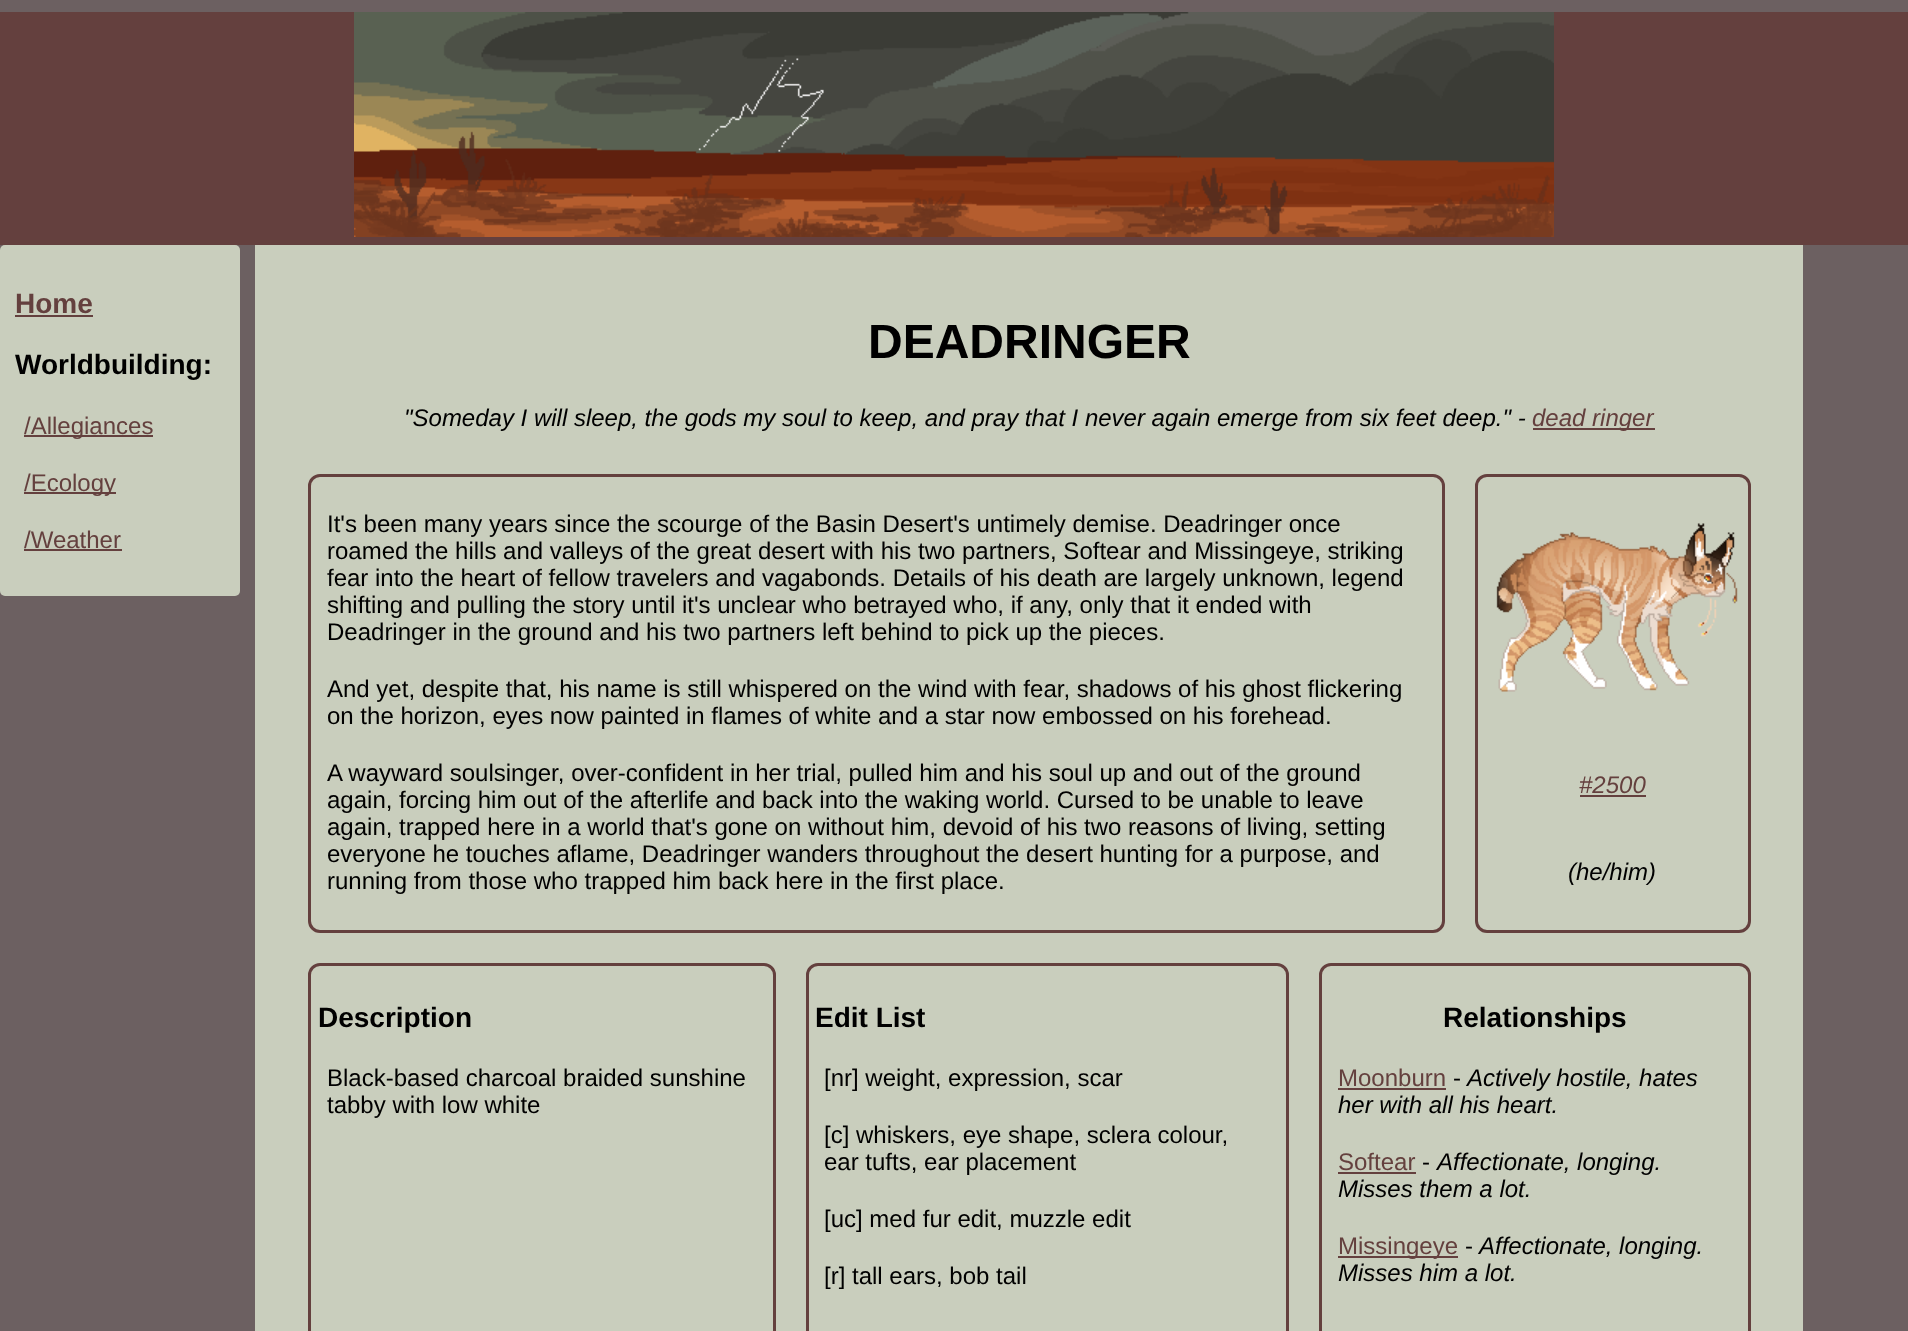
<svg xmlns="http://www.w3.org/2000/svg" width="1908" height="1331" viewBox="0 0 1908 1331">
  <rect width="100%" height="100%" fill="#6c6061"/>
  <rect x="0" y="12" width="1908" height="233" fill="#64403e"/>
  <image x="354" y="12" width="1200" height="225" href="img1.png"/>
  <rect x="0" y="245" width="240" height="351" rx="5" fill="#c9cebd"/>
  <text x="15" y="313" font-family="Liberation Sans" font-size="28" font-weight="bold" fill="#64403e">Home</text>
  <rect x="15" y="315" width="78" height="2" fill="#64403e"/>
  <text x="15" y="374" font-family="Liberation Sans" font-size="28" font-weight="bold" fill="#000000">Worldbuilding:</text>
  <rect x="24" y="435" width="129" height="2" fill="#64403e"/>
  <text x="24" y="434" font-family="Liberation Sans" font-size="24" fill="#64403e">/Allegiances</text>
  <rect x="24" y="492" width="92" height="2" fill="#64403e"/>
  <text x="24" y="491" font-family="Liberation Sans" font-size="24" fill="#64403e">/Ecology</text>
  <text x="24" y="548" font-family="Liberation Sans" font-size="24" fill="#64403e">/Weather</text>
  <rect x="24" y="549" width="98" height="2" fill="#64403e"/>
  <rect x="255" y="245" width="1548" height="1086" fill="#c9cebd"/>
  <text x="868" y="358" font-family="Liberation Sans" font-size="48" font-weight="bold" fill="#000000">DEADRINGER</text>
  <text x="404" y="426" font-family="Liberation Sans" font-size="24" font-style="italic" fill="#000000">"Someday I will sleep, the gods my soul to keep, and pray that I never again emerge from six feet deep." -</text>
  <rect x="1533" y="428" width="122" height="2" fill="#64403e"/>
  <text x="1532" y="426" font-family="Liberation Sans" font-size="24" font-style="italic" fill="#64403e">dead ringer</text>
  <rect x="309.5" y="475.5" width="1134" height="456" rx="10.5" fill="none" stroke="#64403e" stroke-width="3"/>
  <text x="327" y="532" font-family="Liberation Sans" font-size="24" fill="#000000">It's been many years since the scourge of the Basin Desert's untimely demise. Deadringer once</text>
  <text x="327" y="559" font-family="Liberation Sans" font-size="24" fill="#000000">roamed the hills and valleys of the great desert with his two partners, Softear and Missingeye, striking</text>
  <text x="327" y="586" font-family="Liberation Sans" font-size="24" fill="#000000">fear into the heart of fellow travelers and vagabonds. Details of his death are largely unknown, legend</text>
  <text x="327" y="613" font-family="Liberation Sans" font-size="24" fill="#000000">shifting and pulling the story until it's unclear who betrayed who, if any, only that it ended with</text>
  <text x="327" y="640" font-family="Liberation Sans" font-size="24" fill="#000000">Deadringer in the ground and his two partners left behind to pick up the pieces.</text>
  <text x="327" y="697" font-family="Liberation Sans" font-size="24" fill="#000000">And yet, despite that, his name is still whispered on the wind with fear, shadows of his ghost flickering</text>
  <text x="327" y="724" font-family="Liberation Sans" font-size="24" fill="#000000">on the horizon, eyes now painted in flames of white and a star now embossed on his forehead.</text>
  <text x="327" y="781" font-family="Liberation Sans" font-size="24" fill="#000000">A wayward soulsinger, over-confident in her trial, pulled him and his soul up and out of the ground</text>
  <text x="327" y="808" font-family="Liberation Sans" font-size="24" fill="#000000">again, forcing him out of the afterlife and back into the waking world. Cursed to be unable to leave</text>
  <text x="327" y="835" font-family="Liberation Sans" font-size="24" fill="#000000">again, trapped here in a world that's gone on without him, devoid of his two reasons of living, setting</text>
  <text x="327" y="862" font-family="Liberation Sans" font-size="24" fill="#000000">everyone he touches aflame, Deadringer wanders throughout the desert hunting for a purpose, and</text>
  <text x="327" y="889" font-family="Liberation Sans" font-size="24" fill="#000000">running from those who trapped him back here in the first place.</text>
  <rect x="1476.5" y="475.5" width="273" height="456" rx="10.5" fill="none" stroke="#64403e" stroke-width="3"/>
  <image x="1496" y="523" width="242" height="169" href="img2.png"/>
  <text x="1579" y="793" font-family="Liberation Sans" font-size="24" font-style="italic" fill="#64403e">#2500</text>
  <rect x="1580" y="795" width="66" height="2" fill="#64403e"/>
  <text x="1568" y="880" font-family="Liberation Sans" font-size="24" font-style="italic" fill="#000000">(he/him)</text>
  <rect x="309.5" y="964.5" width="465" height="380" rx="10.5" fill="none" stroke="#64403e" stroke-width="3"/>
  <text x="318" y="1027" font-family="Liberation Sans" font-size="28" font-weight="bold" fill="#000000">Description</text>
  <text x="327" y="1086" font-family="Liberation Sans" font-size="24" fill="#000000">Black-based charcoal braided sunshine</text>
  <text x="327" y="1113" font-family="Liberation Sans" font-size="24" fill="#000000">tabby with low white</text>
  <rect x="807.5" y="964.5" width="480" height="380" rx="10.5" fill="none" stroke="#64403e" stroke-width="3"/>
  <text x="815" y="1027" font-family="Liberation Sans" font-size="28" font-weight="bold" fill="#000000">Edit List</text>
  <text x="824" y="1086" font-family="Liberation Sans" font-size="24" fill="#000000">[nr] weight, expression, scar</text>
  <text x="824" y="1143" font-family="Liberation Sans" font-size="24" fill="#000000">[c] whiskers, eye shape, sclera colour,</text>
  <text x="824" y="1170" font-family="Liberation Sans" font-size="24" fill="#000000">ear tufts, ear placement</text>
  <text x="824" y="1227" font-family="Liberation Sans" font-size="24" fill="#000000">[uc] med fur edit, muzzle edit</text>
  <text x="824" y="1284" font-family="Liberation Sans" font-size="24" fill="#000000">[r] tall ears, bob tail</text>
  <rect x="1320.5" y="964.5" width="429" height="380" rx="10.5" fill="none" stroke="#64403e" stroke-width="3"/>
  <text x="1443" y="1027" font-family="Liberation Sans" font-size="28" font-weight="bold" fill="#000000">Relationships</text>
  <text x="1338" y="1086" font-family="Liberation Sans" font-size="24" fill="#64403e">Moonburn</text>
  <rect x="1338" y="1088" width="108" height="2" fill="#64403e"/>
  <text x="1453" y="1086" font-family="Liberation Sans" font-size="24" fill="#000000">-</text>
  <text x="1467" y="1086" font-family="Liberation Sans" font-size="24" font-style="italic" fill="#000000">Actively hostile, hates</text>
  <text x="1338" y="1113" font-family="Liberation Sans" font-size="24" font-style="italic" fill="#000000">her with all his heart.</text>
  <text x="1338" y="1170" font-family="Liberation Sans" font-size="24" fill="#64403e">Softear</text>
  <rect x="1338" y="1172" width="78" height="2" fill="#64403e"/>
  <text x="1422" y="1170" font-family="Liberation Sans" font-size="24" fill="#000000">-</text>
  <text x="1437" y="1170" font-family="Liberation Sans" font-size="24" font-style="italic" fill="#000000">Affectionate, longing.</text>
  <text x="1338" y="1197" font-family="Liberation Sans" font-size="24" font-style="italic" fill="#000000">Misses them a lot.</text>
  <rect x="1338" y="1256" width="120" height="2" fill="#64403e"/>
  <text x="1338" y="1254" font-family="Liberation Sans" font-size="24" fill="#64403e">Missingeye</text>
  <text x="1465" y="1254" font-family="Liberation Sans" font-size="24" fill="#000000">-</text>
  <text x="1479" y="1254" font-family="Liberation Sans" font-size="24" font-style="italic" fill="#000000">Affectionate, longing.</text>
  <text x="1338" y="1281" font-family="Liberation Sans" font-size="24" font-style="italic" fill="#000000">Misses him a lot.</text>
</svg>
